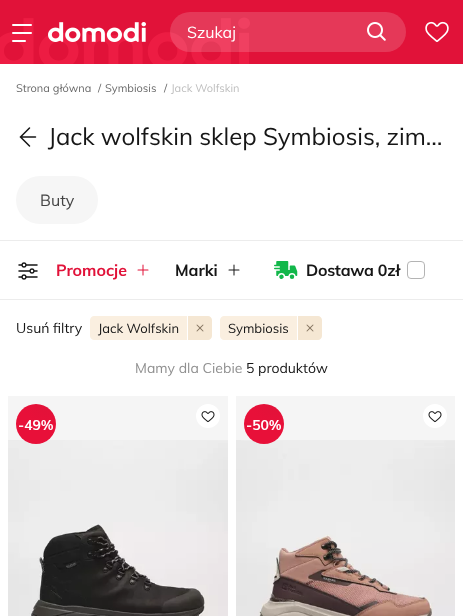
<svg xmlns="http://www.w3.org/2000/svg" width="463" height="616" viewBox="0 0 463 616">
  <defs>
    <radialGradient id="g1" gradientUnits="userSpaceOnUse" cx="47" cy="403" r="23"><stop offset="0" stop-color="#e11239"/><stop offset="1" stop-color="#e81039"/></radialGradient>
    <radialGradient id="g2" gradientUnits="userSpaceOnUse" cx="275" cy="403" r="23"><stop offset="0" stop-color="#e11239"/><stop offset="1" stop-color="#e81039"/></radialGradient>
  </defs>
  <rect width="100%" height="100%" fill="#ffffff"/>
  <rect x="236" y="396" width="219" height="44" fill="#f5f5f5"/>
  <rect x="8" y="396" width="220" height="44" fill="#f5f5f5"/>
  <rect x="0" y="0" width="463" height="64" fill="#e11239"/>
  <image x="0" y="17" width="250" height="47" href="img1.png"/>
  <rect x="12" y="32" width="20" height="2" rx="1" fill="#ffffff"/>
  <rect x="12" y="24" width="20" height="2" rx="1" fill="#ffffff"/>
  <rect x="12" y="40" width="14" height="2" rx="1" fill="#ffffff"/>
  <image x="48" y="22" width="98" height="20" href="img2.png"/>
  <rect x="170" y="12" width="236" height="40" rx="20" fill="#ffffff" fill-opacity="0.16"/>
  <text x="187" y="38" font-family="Mulish" font-size="16" fill="#ffffff">Szukaj</text>
  <image x="367" y="22" width="19" height="19" href="img3.png"/>
  <image x="425" y="21" width="24" height="21" href="img4.png"/>
  <text x="16" y="92" font-family="Mulish" font-size="11" fill="#6a6a6a">Strona główna</text>
  <text x="98" y="92" font-family="Mulish" font-size="11" fill="#6a6a6a">/</text>
  <text x="105" y="92" font-family="Mulish" font-size="11" fill="#6a6a6a">Symbiosis</text>
  <text x="164" y="92" font-family="Mulish" font-size="11" fill="#6a6a6a">/</text>
  <text x="171" y="92" font-family="Mulish" font-size="11" fill="#bebebe">Jack Wolfskin</text>
  <image x="19" y="127" width="18" height="20" href="img5.png"/>
  <text x="48" y="145" font-family="Mulish" font-size="24" fill="#161616">Jack wolfskin sklep Symbiosis, zim…</text>
  <rect x="16" y="176" width="82" height="48" rx="24" fill="#f6f6f6"/>
  <text x="40" y="206" font-family="Mulish" font-size="16" fill="#434343">Buty</text>
  <rect x="0" y="240" width="463" height="1" fill="#ececec"/>
  <rect x="0" y="299" width="463" height="1" fill="#ececec"/>
  <image x="18" y="262" width="20" height="18" href="img6.png"/>
  <text x="56" y="276" font-family="Mulish" font-size="16" font-weight="bold" fill="#e11239">Promocje</text>
  <image x="137" y="264" width="12" height="12" href="img7.png"/>
  <text x="175" y="276" font-family="Mulish" font-size="16" font-weight="bold" fill="#161616">Marki</text>
  <image x="228" y="264" width="12" height="12" href="img8.png"/>
  <image x="274" y="261" width="24" height="18" href="img9.png"/>
  <text x="306" y="276" font-family="Mulish" font-size="16" font-weight="bold" letter-spacing="-0.25" fill="#161616">Dostawa 0zł</text>
  <rect x="407.5" y="261.5" width="17" height="17" rx="3.5" fill="none" stroke="#b4b4b4"/>
  <text x="16" y="333" font-family="Mulish" font-size="14" fill="#161616">Usuń filtry</text>
  <path d="M94 316H187V340H94C92 340 90 338 90 336V320C90 318 92 316 94 316Z" fill="#faefe0"/>
  <text x="98" y="333" font-family="Mulish" font-size="13" fill="#161616">Jack Wolfskin</text>
  <path d="M188 316H208C210 316 212 318 212 320V336C212 338 210 340 208 340H188Z" fill="#f5e7d3"/>
  <image x="196" y="324" width="8" height="8" href="img10.png"/>
  <path d="M224 316H297V340H224C222 340 220 338 220 336V320C220 318 222 316 224 316Z" fill="#faefe0"/>
  <text x="228" y="333" font-family="Mulish" font-size="13" fill="#161616">Symbiosis</text>
  <path d="M298 316H318C320 316 322 318 322 320V336C322 338 320 340 318 340H298Z" fill="#f5e7d3"/>
  <image x="306" y="324" width="8" height="8" href="img10.png"/>
  <text x="135" y="373" font-family="Mulish" font-size="14" fill="#8f8f8f">Mamy dla Ciebie</text>
  <text x="246" y="373" font-family="Mulish" font-size="14" fill="#161616">5 produktów</text>
  <image x="8" y="440" width="220" height="176" href="img11.png"/>
  <circle cx="36" cy="424" r="20" fill="url(#g1)"/>
  <text x="18" y="430" font-family="Mulish" font-size="14" font-weight="bold" fill="#ffffff">-49%</text>
  <circle cx="208" cy="416" r="12" fill="#ffffff"/>
  <image x="201" y="411" width="14" height="12" href="img12.png"/>
  <image x="236" y="440" width="219" height="176" href="img13.png"/>
  <circle cx="264" cy="424" r="20" fill="url(#g2)"/>
  <text x="246" y="430" font-family="Mulish" font-size="14" font-weight="bold" fill="#ffffff">-50%</text>
  <circle cx="435" cy="416" r="12" fill="#ffffff"/>
  <image x="428" y="411" width="14" height="12" href="img12.png"/>
</svg>
